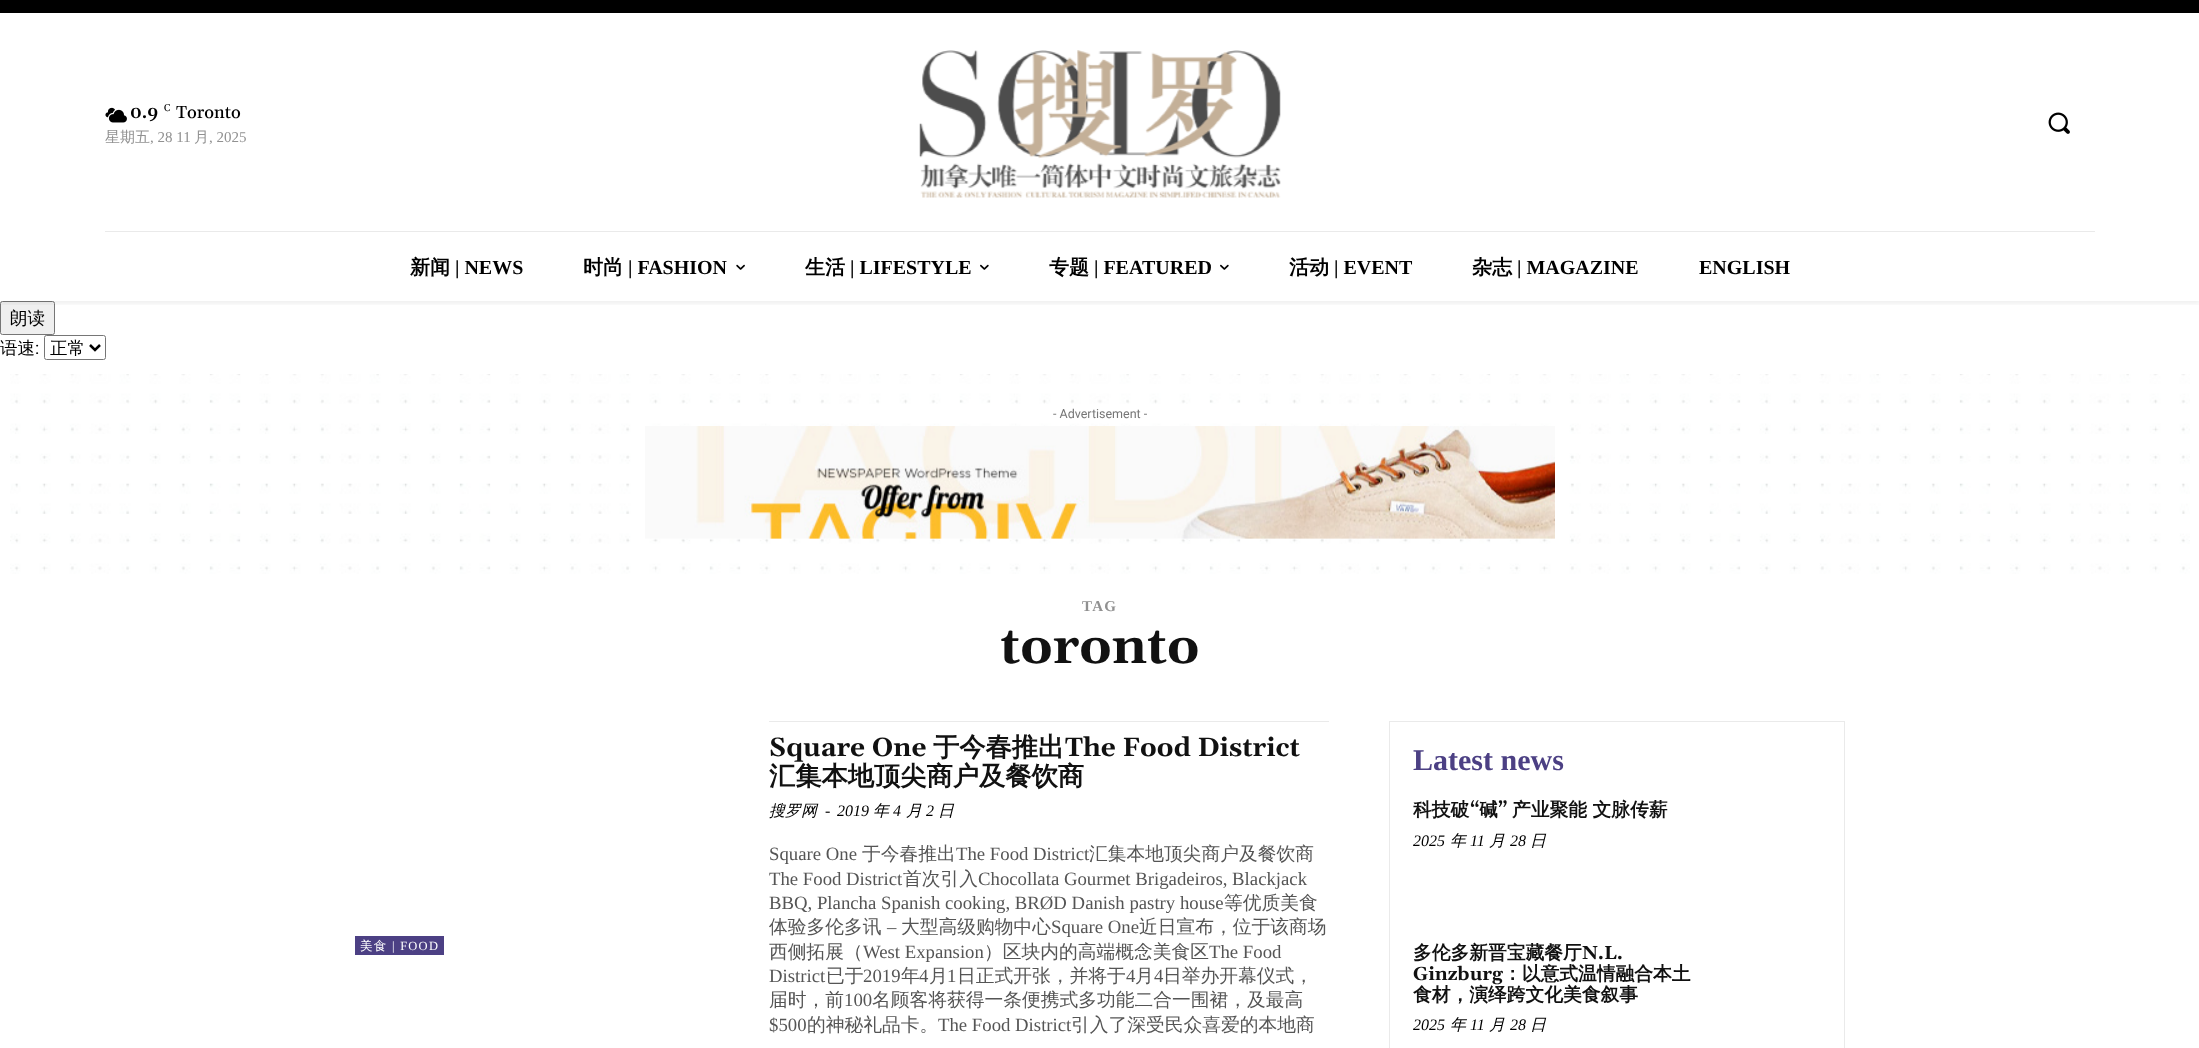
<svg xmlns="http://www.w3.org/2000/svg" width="2199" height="1048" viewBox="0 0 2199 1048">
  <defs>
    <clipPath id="clip1"><rect x="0" y="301" width="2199" height="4"/></clipPath>
    <filter id="blur1" x="-50%" y="-200%" width="200%" height="500%"><feGaussianBlur stdDeviation="2.5"/></filter>
  </defs>
  <rect width="100%" height="100%" fill="#ffffff"/>
  <rect x="0" y="0" width="2199" height="13" fill="#000000"/>
  <image x="105" y="107" width="22" height="16" href="img1.png"/>
  <text x="130" y="118" font-family="Gelasio" font-size="17.5" font-weight="600" fill="#000000">0.9</text>
  <text x="164" y="111" font-family="Gelasio" font-size="10" fill="#000000">C</text>
  <text x="176" y="118" font-family="Gelasio" font-size="17.5" font-weight="500" fill="#000000">Toronto</text>
  <text x="105" y="142" font-family="WenQuanYi Zen Hei" font-size="15" font-weight="500" fill="#919191">星期五</text>
  <text x="150" y="142" font-family="Liberation Serif" font-size="15" fill="#919191">, 28 11</text>
  <text x="194" y="142" font-family="WenQuanYi Zen Hei" font-size="15" font-weight="500" fill="#919191">月</text>
  <text x="209" y="142" font-family="Liberation Serif" font-size="15" fill="#919191">, 2025</text>
  <image x="919" y="50" width="362" height="148" href="img2.png"/>
  <image x="2048" y="112" width="22" height="22" href="img3.png"/>
  <rect x="105" y="231" width="1990" height="1" fill="#eaeaea"/>
  <rect x="0.5" y="301.5" width="54" height="33" rx="2" fill="#efefef" stroke="#767676"/>
  <g clip-path="url(#clip1)">
    <rect x="0" y="196" width="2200" height="108" fill="#000000" fill-opacity="0.06" filter="url(#blur1)"/>
  </g>
  <text x="410" y="274" font-family="WenQuanYi Zen Hei" font-size="20" font-weight="bold" fill="#000000">新闻</text>
  <text x="455" y="274" font-family="Liberation Serif" font-size="20" font-weight="bold" fill="#000000">| NEWS</text>
  <text x="583" y="274" font-family="WenQuanYi Zen Hei" font-size="20" font-weight="bold" fill="#000000">时尚</text>
  <text x="628" y="274" font-family="Liberation Serif" font-size="20" font-weight="bold" fill="#000000">| FASHION</text>
  <image x="736" y="264" width="9" height="6" href="img4.png"/>
  <text x="805" y="274" font-family="WenQuanYi Zen Hei" font-size="20" font-weight="bold" fill="#000000">生活</text>
  <text x="850" y="274" font-family="Liberation Serif" font-size="20" font-weight="bold" fill="#000000">| LIFESTYLE</text>
  <image x="980" y="264" width="9" height="6" href="img5.png"/>
  <text x="1049" y="274" font-family="WenQuanYi Zen Hei" font-size="20" font-weight="bold" fill="#000000">专题</text>
  <text x="1094" y="274" font-family="Liberation Serif" font-size="20" font-weight="bold" fill="#000000">| FEATURED</text>
  <image x="1220" y="264" width="9" height="6" href="img5.png"/>
  <text x="1289" y="274" font-family="WenQuanYi Zen Hei" font-size="20" font-weight="bold" fill="#000000">活动</text>
  <text x="1334" y="274" font-family="Liberation Serif" font-size="20" font-weight="bold" fill="#000000">| EVENT</text>
  <text x="1472" y="274" font-family="WenQuanYi Zen Hei" font-size="20" font-weight="bold" fill="#000000">杂志</text>
  <text x="1517" y="274" font-family="Liberation Serif" font-size="20" font-weight="bold" fill="#000000">| MAGAZINE</text>
  <text x="1699" y="274" font-family="Liberation Serif" font-size="20" font-weight="bold" fill="#000000">ENGLISH</text>
  <text x="10" y="324" font-family="WenQuanYi Zen Hei" font-size="17.5" font-weight="500" fill="#000000">朗读</text>
  <text x="0" y="354" font-family="WenQuanYi Zen Hei" font-size="17.5" font-weight="500" fill="#000000">语速</text>
  <text x="35" y="354" font-family="Roboto" font-size="17.5" fill="#000000">:</text>
  <rect x="44.5" y="335.5" width="61" height="24" rx="2" fill="none" stroke="#767676"/>
  <path d="M90 345L95 350L100 345" fill="none" stroke="#000000" stroke-width="2.5"/>
  <text x="50" y="354" font-family="WenQuanYi Zen Hei" font-size="17.5" font-weight="500" fill="#000000">正常</text>
  <image x="10" y="374" width="2180" height="200" href="img6.png"/>
  <text x="1053" y="418" font-family="Roboto" font-size="12.5" fill="#767676">- Advertisement -</text>
  <image x="645" y="426" width="910" height="113" href="img7.png"/>
  <text x="1082" y="611" font-family="Liberation Serif" font-size="15" font-weight="bold" letter-spacing="1.25" fill="#919191">TAG</text>
  <text x="1000" y="663" font-family="Gelasio" font-size="51" font-weight="bold" fill="#111111">toronto</text>
  <rect x="355" y="936" width="89" height="19" fill="#4c4084"/>
  <text x="360" y="950" font-family="WenQuanYi Zen Hei" font-size="12.5" font-weight="500" letter-spacing="1.25" fill="#ffffff">美食</text>
  <text x="392" y="950" font-family="Liberation Serif" font-size="12.5" letter-spacing="1.25" fill="#ffffff">| FOOD</text>
  <rect x="769" y="721" width="560" height="1" fill="#eaeaea"/>
  <text x="769" y="756" font-family="Gelasio" font-size="26.25" font-weight="bold" fill="#111111">Square One</text>
  <text x="933" y="756" font-family="WenQuanYi Zen Hei" font-size="26.25" font-weight="bold" fill="#111111">于今春推出</text>
  <text x="1065" y="756" font-family="Gelasio" font-size="26.25" font-weight="bold" fill="#111111">The Food District</text>
  <text x="769" y="785" font-family="WenQuanYi Zen Hei" font-size="26.25" font-weight="bold" fill="#111111">汇集本地顶尖商户及餐饮商</text>
  <text x="769" y="816" font-family="WenQuanYi Zen Hei" font-size="16" font-weight="500" font-style="italic" fill="#000000">搜罗网</text>
  <text x="825" y="816" font-family="Liberation Serif" font-size="16" font-style="italic" fill="#000000">-</text>
  <text x="837" y="816" font-family="Liberation Serif" font-size="16" font-style="italic" fill="#000000">2019</text>
  <text x="873" y="816" font-family="WenQuanYi Zen Hei" font-size="16" font-weight="500" font-style="italic" fill="#000000">年</text>
  <text x="893" y="816" font-family="Liberation Serif" font-size="16" font-style="italic" fill="#000000">4</text>
  <text x="906" y="816" font-family="WenQuanYi Zen Hei" font-size="16" font-weight="500" font-style="italic" fill="#000000">月</text>
  <text x="926" y="816" font-family="Liberation Serif" font-size="16" font-style="italic" fill="#000000">2</text>
  <text x="938" y="816" font-family="WenQuanYi Zen Hei" font-size="16" font-weight="500" font-style="italic" fill="#000000">日</text>
  <text x="769" y="860" font-family="Liberation Serif" font-size="18.75" fill="#555555">Square One</text>
  <text x="862" y="860" font-family="WenQuanYi Zen Hei" font-size="18.75" font-weight="500" fill="#555555">于今春推出</text>
  <text x="956" y="860" font-family="Liberation Serif" font-size="18.75" fill="#555555">The Food District</text>
  <text x="1089" y="860" font-family="WenQuanYi Zen Hei" font-size="18.75" font-weight="500" fill="#555555">汇集本地顶尖商户及餐饮商</text>
  <text x="769" y="885" font-family="Liberation Serif" font-size="18.75" fill="#555555">The Food District</text>
  <text x="903" y="885" font-family="WenQuanYi Zen Hei" font-size="18.75" font-weight="500" fill="#555555">首次引入</text>
  <text x="978" y="885" font-family="Liberation Serif" font-size="18.75" fill="#555555">Chocollata Gourmet Brigadeiros, Blackjack</text>
  <text x="769" y="909" font-family="Liberation Serif" font-size="18.75" fill="#555555">BBQ, Plancha Spanish cooking, BRØD Danish pastry house</text>
  <text x="1224" y="909" font-family="WenQuanYi Zen Hei" font-size="18.75" font-weight="500" fill="#555555">等优质美食</text>
  <text x="769" y="933" font-family="WenQuanYi Zen Hei" font-size="18.75" font-weight="500" fill="#555555">体验多伦多讯</text>
  <text x="887" y="933" font-family="Liberation Serif" font-size="18.75" fill="#555555">–</text>
  <text x="901" y="933" font-family="WenQuanYi Zen Hei" font-size="18.75" font-weight="500" fill="#555555">大型高级购物中心</text>
  <text x="1051" y="933" font-family="Liberation Serif" font-size="18.75" fill="#555555">Square One</text>
  <text x="1139" y="933" font-family="WenQuanYi Zen Hei" font-size="18.75" font-weight="500" fill="#555555">近日宣布，位于该商场</text>
  <text x="769" y="958" font-family="WenQuanYi Zen Hei" font-size="18.75" font-weight="500" fill="#555555">西侧拓展（</text>
  <text x="863" y="958" font-family="Liberation Serif" font-size="18.75" fill="#555555">West Expansion</text>
  <text x="984" y="958" font-family="WenQuanYi Zen Hei" font-size="18.75" font-weight="500" fill="#555555">）区块内的高端概念美食区</text>
  <text x="1209" y="958" font-family="Liberation Serif" font-size="18.75" fill="#555555">The Food</text>
  <text x="769" y="982" font-family="Liberation Serif" font-size="18.75" fill="#555555">District</text>
  <text x="826" y="982" font-family="WenQuanYi Zen Hei" font-size="18.75" font-weight="500" fill="#555555">已于</text>
  <text x="863" y="982" font-family="Liberation Serif" font-size="18.75" fill="#555555">2019</text>
  <text x="901" y="982" font-family="WenQuanYi Zen Hei" font-size="18.75" font-weight="500" fill="#555555">年</text>
  <text x="919" y="982" font-family="Liberation Serif" font-size="18.75" fill="#555555">4</text>
  <text x="929" y="982" font-family="WenQuanYi Zen Hei" font-size="18.75" font-weight="500" fill="#555555">月</text>
  <text x="947" y="982" font-family="Liberation Serif" font-size="18.75" fill="#555555">1</text>
  <text x="957" y="982" font-family="WenQuanYi Zen Hei" font-size="18.75" font-weight="500" fill="#555555">日正式开张，并将于</text>
  <text x="1126" y="982" font-family="Liberation Serif" font-size="18.75" fill="#555555">4</text>
  <text x="1135" y="982" font-family="WenQuanYi Zen Hei" font-size="18.75" font-weight="500" fill="#555555">月</text>
  <text x="1154" y="982" font-family="Liberation Serif" font-size="18.75" fill="#555555">4</text>
  <text x="1163" y="982" font-family="WenQuanYi Zen Hei" font-size="18.75" font-weight="500" fill="#555555">日举办开幕仪式，</text>
  <text x="769" y="1006" font-family="WenQuanYi Zen Hei" font-size="18.75" font-weight="500" fill="#555555">届时，前</text>
  <text x="844" y="1006" font-family="Liberation Serif" font-size="18.75" fill="#555555">100</text>
  <text x="872" y="1006" font-family="WenQuanYi Zen Hei" font-size="18.75" font-weight="500" fill="#555555">名顾客将获得一条便携式多功能二合一围裙，及最高</text>
  <text x="769" y="1031" font-family="Liberation Serif" font-size="18.75" fill="#555555">$500</text>
  <text x="807" y="1031" font-family="WenQuanYi Zen Hei" font-size="18.75" font-weight="500" fill="#555555">的神秘礼品卡。</text>
  <text x="938" y="1031" font-family="Liberation Serif" font-size="18.75" fill="#555555">The Food District</text>
  <text x="1071" y="1031" font-family="WenQuanYi Zen Hei" font-size="18.75" font-weight="500" fill="#555555">引入了深受民众喜爱的本地商</text>
  <rect x="1389.5" y="721.5" width="455" height="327" fill="none" stroke="#eaeaea"/>
  <text x="1413" y="770" font-family="Liberation Serif" font-size="30" font-weight="bold" fill="#4c4084">Latest news</text>
  <text x="1413" y="816" font-family="WenQuanYi Zen Hei" font-size="18.75" font-weight="bold" fill="#111111">科技破</text>
  <text x="1470" y="816" font-family="Gelasio" font-size="18.75" font-weight="bold" fill="#111111">“</text>
  <text x="1479" y="816" font-family="WenQuanYi Zen Hei" font-size="18.75" font-weight="bold" fill="#111111">碱</text>
  <text x="1498" y="816" font-family="Gelasio" font-size="18.75" font-weight="bold" fill="#111111">”</text>
  <text x="1512" y="816" font-family="WenQuanYi Zen Hei" font-size="18.75" font-weight="bold" fill="#111111">产业聚能 文脉传薪</text>
  <text x="1413" y="846" font-family="Liberation Serif" font-size="16" font-style="italic" fill="#000000">2025</text>
  <text x="1450" y="846" font-family="WenQuanYi Zen Hei" font-size="16" font-weight="500" font-style="italic" fill="#000000">年</text>
  <text x="1470" y="846" font-family="Liberation Serif" font-size="16" font-style="italic" fill="#000000">11</text>
  <text x="1489" y="846" font-family="WenQuanYi Zen Hei" font-size="16" font-weight="500" font-style="italic" fill="#000000">月</text>
  <text x="1510" y="846" font-family="Liberation Serif" font-size="16" font-style="italic" fill="#000000">28</text>
  <text x="1530" y="846" font-family="WenQuanYi Zen Hei" font-size="16" font-weight="500" font-style="italic" fill="#000000">日</text>
  <text x="1413" y="959" font-family="WenQuanYi Zen Hei" font-size="18.75" font-weight="bold" fill="#111111">多伦多新晋宝藏餐厅</text>
  <text x="1582" y="959" font-family="Gelasio" font-size="18.75" font-weight="bold" fill="#111111">N.L.</text>
  <text x="1413" y="980" font-family="Gelasio" font-size="18.75" font-weight="bold" fill="#111111">Ginzburg</text>
  <text x="1503" y="980" font-family="WenQuanYi Zen Hei" font-size="18.75" font-weight="bold" fill="#111111">：以意式温情融合本土</text>
  <text x="1413" y="1001" font-family="WenQuanYi Zen Hei" font-size="18.75" font-weight="bold" fill="#111111">食材，演绎跨文化美食叙事</text>
  <text x="1413" y="1030" font-family="Liberation Serif" font-size="16" font-style="italic" fill="#000000">2025</text>
  <text x="1450" y="1030" font-family="WenQuanYi Zen Hei" font-size="16" font-weight="500" font-style="italic" fill="#000000">年</text>
  <text x="1470" y="1030" font-family="Liberation Serif" font-size="16" font-style="italic" fill="#000000">11</text>
  <text x="1489" y="1030" font-family="WenQuanYi Zen Hei" font-size="16" font-weight="500" font-style="italic" fill="#000000">月</text>
  <text x="1510" y="1030" font-family="Liberation Serif" font-size="16" font-style="italic" fill="#000000">28</text>
  <text x="1530" y="1030" font-family="WenQuanYi Zen Hei" font-size="16" font-weight="500" font-style="italic" fill="#000000">日</text>
</svg>
